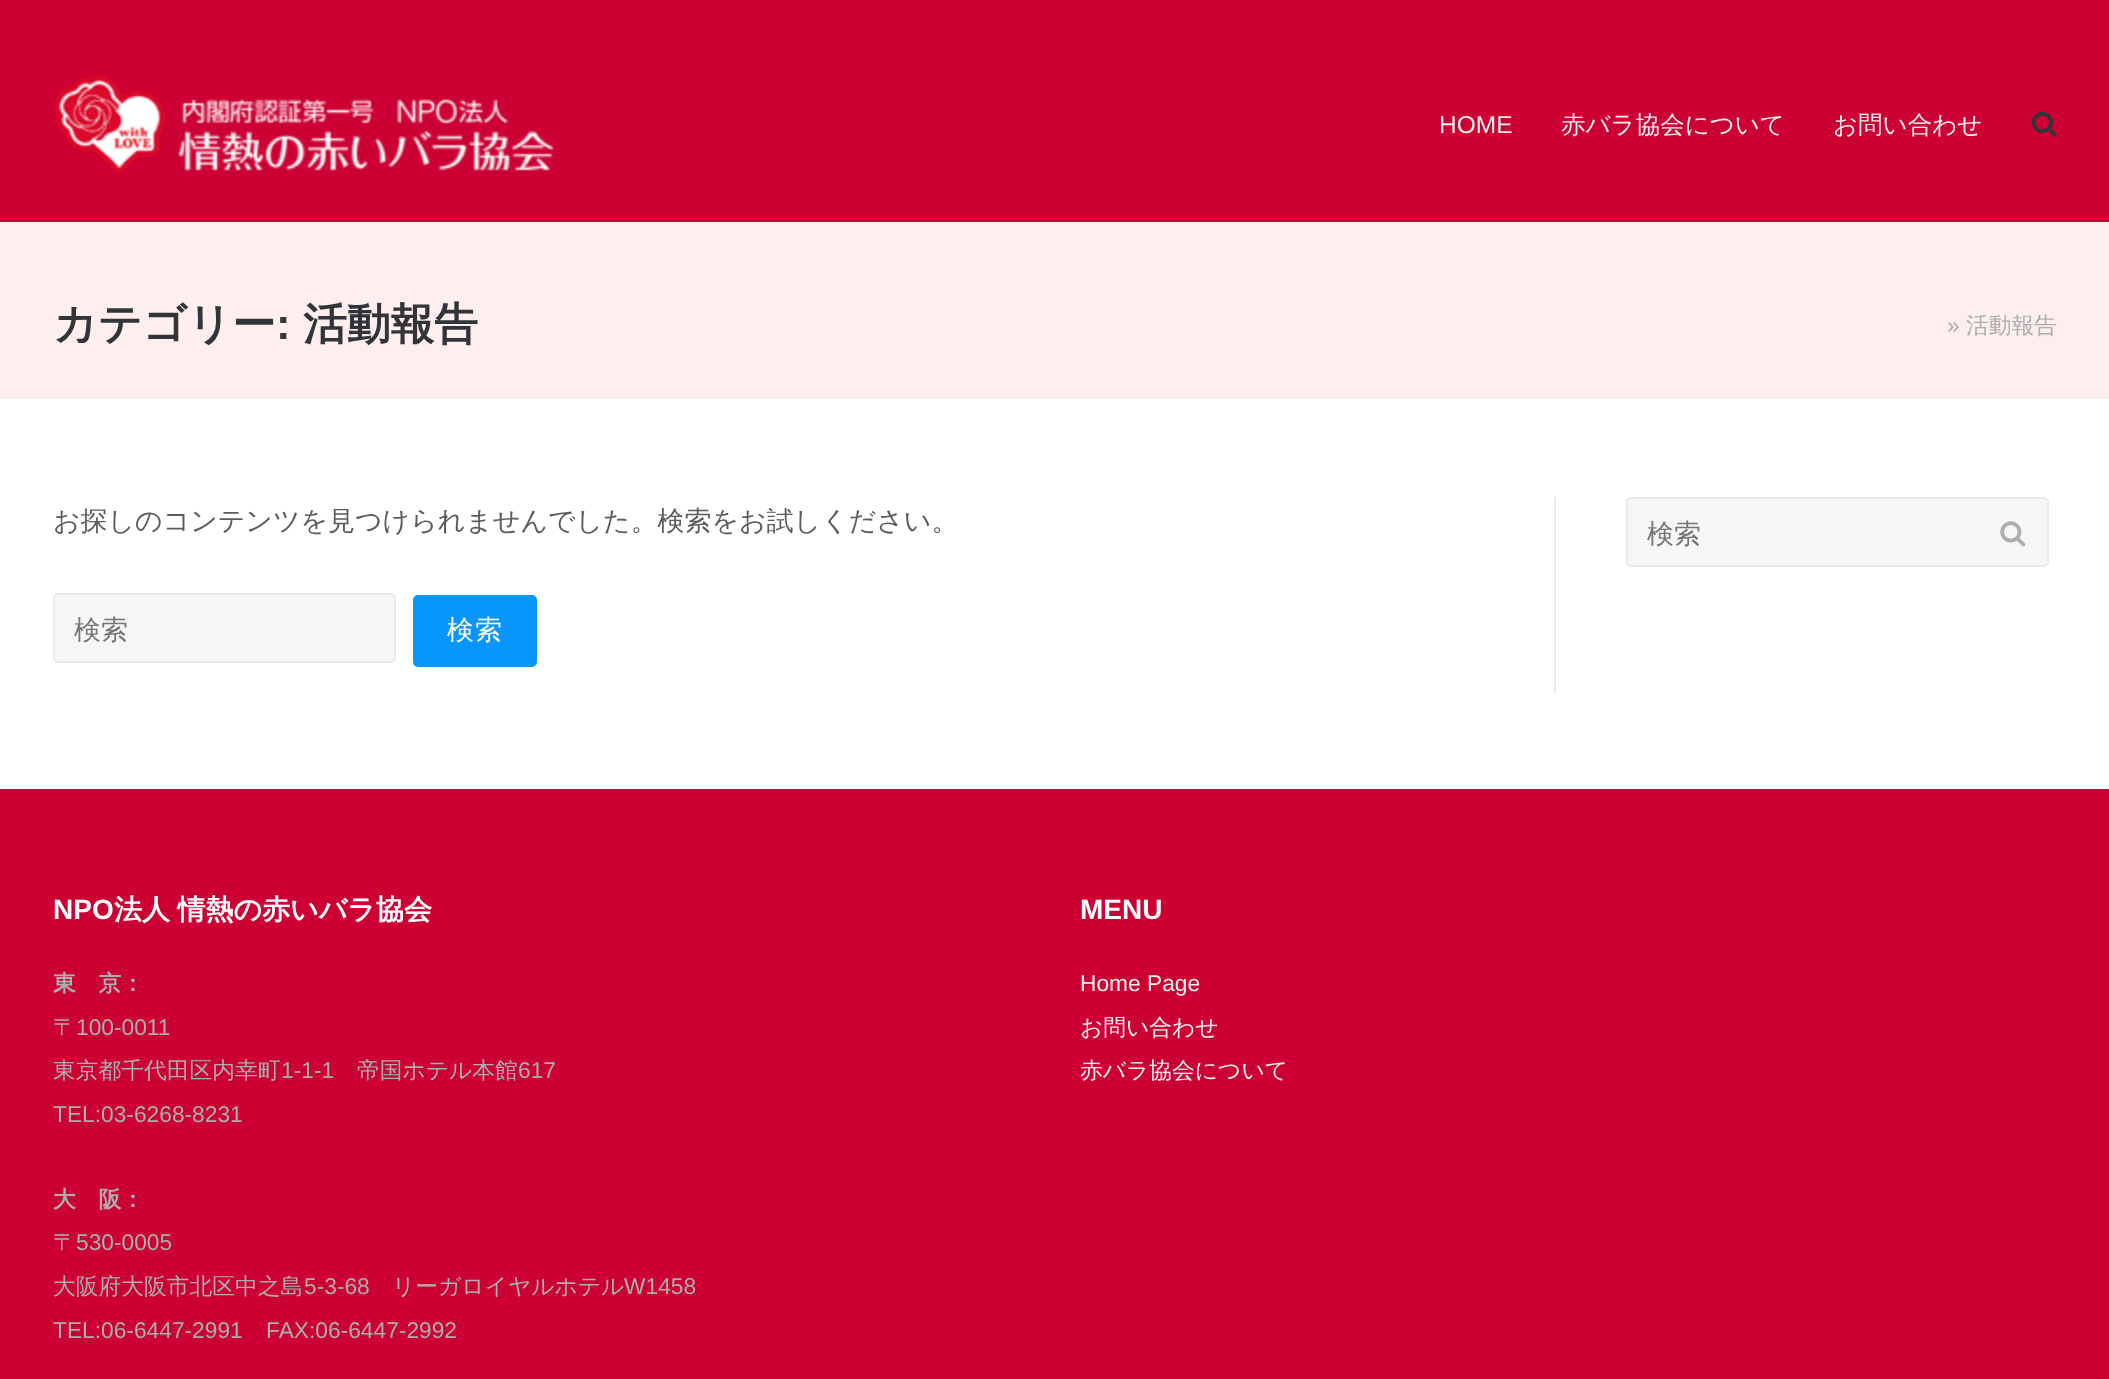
<svg xmlns="http://www.w3.org/2000/svg" width="2109" height="1379" viewBox="0 0 2109 1379">
  <rect width="100%" height="100%" fill="#ffffff"/>
  <rect x="0" y="0" width="2109" height="222" fill="#cc0033"/>
  <image x="54" y="75" width="500" height="99" href="img1.png"/>
  <text x="1439" y="133" font-family="Liberation Sans" font-size="24.5" fill="#eeeeee">HOME</text>
  <text x="1561" y="133" font-family="WenQuanYi Zen Hei" font-size="24.5" font-weight="500" fill="#eeeeee">赤バラ協会について</text>
  <text x="1833" y="133" font-family="WenQuanYi Zen Hei" font-size="24.5" font-weight="500" fill="#eeeeee">お問い合わせ</text>
  <image x="2031" y="111" width="26" height="26" href="img2.png"/>
  <rect x="0" y="222" width="2109" height="177" fill="#ffeeee"/>
  <text x="53" y="339" font-family="WenQuanYi Zen Hei" font-size="43.75" font-weight="bold" fill="#313539">カテゴリー</text>
  <text x="276" y="339" font-family="Liberation Sans" font-size="43.75" font-weight="bold" fill="#313539">:</text>
  <text x="303" y="339" font-family="WenQuanYi Zen Hei" font-size="43.75" font-weight="bold" fill="#313539">活動報告</text>
  <text x="1947" y="333" font-family="Liberation Sans" font-size="22.75" fill="#acaeaf">»</text>
  <text x="1966" y="333" font-family="WenQuanYi Zen Hei" font-size="22.75" font-weight="500" fill="#acaeaf">活動報告</text>
  <rect x="1554" y="497" width="2" height="196" fill="#eaeaeb"/>
  <text x="53" y="530" font-family="WenQuanYi Zen Hei" font-size="26.95" font-weight="500" fill="#5a5d60">お探しのコンテンツを見つけられませんでした。検索をお試しください。</text>
  <rect x="54" y="594" width="341" height="68" rx="4" fill="#f6f6f7" stroke="#eaeaeb" stroke-width="2"/>
  <text x="74" y="639" font-family="WenQuanYi Zen Hei" font-size="26.95" font-weight="500" fill="#757575">検索</text>
  <rect x="413" y="595" width="124" height="72" rx="5" fill="#0896fe"/>
  <text x="447" y="639" font-family="WenQuanYi Zen Hei" font-size="26.95" font-weight="500" letter-spacing="1" fill="#ffffff">検索</text>
  <rect x="1627" y="498" width="421" height="68" rx="4" fill="#f6f6f7" stroke="#eaeaeb" stroke-width="2"/>
  <text x="1647" y="543" font-family="WenQuanYi Zen Hei" font-size="26.95" font-weight="500" fill="#757575">検索</text>
  <image x="2000" y="521" width="26" height="26" href="img3.png"/>
  <rect x="0" y="789" width="2109" height="590" fill="#cc0033"/>
  <text x="53" y="919" font-family="Liberation Sans" font-size="28" font-weight="bold" fill="#ffffff">NPO</text>
  <text x="114" y="919" word-spacing="-1" font-family="WenQuanYi Zen Hei" font-size="28" font-weight="bold" fill="#ffffff">法人 情熱の赤いバラ協会</text>
  <text x="53" y="991" font-family="WenQuanYi Zen Hei" font-size="22.75" font-weight="bold" fill="#acaeaf">東　京：</text>
  <text x="53" y="1035" font-family="WenQuanYi Zen Hei" font-size="22.75" font-weight="500" fill="#acaeaf">〒</text>
  <text x="76" y="1035" font-family="Liberation Sans" font-size="22.75" fill="#acaeaf">100-0011</text>
  <text x="53" y="1078" font-family="WenQuanYi Zen Hei" font-size="22.75" font-weight="500" fill="#acaeaf">東京都千代田区内幸町</text>
  <text x="281" y="1078" font-family="Liberation Sans" font-size="22.75" fill="#acaeaf">1-1-1</text>
  <text x="357" y="1078" font-family="WenQuanYi Zen Hei" font-size="22.75" font-weight="500" fill="#acaeaf">帝国ホテル本館</text>
  <text x="518" y="1078" font-family="Liberation Sans" font-size="22.75" fill="#acaeaf">617</text>
  <text x="53" y="1122" font-family="Liberation Sans" font-size="22.75" fill="#acaeaf">TEL:03-6268-8231</text>
  <text x="53" y="1207" font-family="WenQuanYi Zen Hei" font-size="22.75" font-weight="bold" fill="#acaeaf">大　阪：</text>
  <text x="53" y="1250" font-family="WenQuanYi Zen Hei" font-size="22.75" font-weight="500" fill="#acaeaf">〒</text>
  <text x="76" y="1250" font-family="Liberation Sans" font-size="22.75" fill="#acaeaf">530-0005</text>
  <text x="53" y="1294" font-family="WenQuanYi Zen Hei" font-size="22.75" font-weight="500" fill="#acaeaf">大阪府大阪市北区中之島</text>
  <text x="304" y="1294" font-family="Liberation Sans" font-size="22.75" fill="#acaeaf">5-3-68</text>
  <text x="392" y="1294" font-family="WenQuanYi Zen Hei" font-size="22.75" font-weight="500" fill="#acaeaf">リーガロイヤルホテル</text>
  <text x="624" y="1294" font-family="Liberation Sans" font-size="22.75" fill="#acaeaf">W1458</text>
  <text x="53" y="1338" font-family="Liberation Sans" font-size="22.75" fill="#acaeaf">TEL:06-6447-2991</text>
  <text x="266" y="1338" font-family="Liberation Sans" font-size="22.75" fill="#acaeaf">FAX:06-6447-2992</text>
  <text x="1080" y="919" font-family="Liberation Sans" font-size="28" font-weight="bold" fill="#ffffff">MENU</text>
  <text x="1080" y="991" font-family="Liberation Sans" font-size="22.75" fill="#eeeeee">Home Page</text>
  <text x="1080" y="1035" font-family="WenQuanYi Zen Hei" font-size="22.75" font-weight="500" fill="#eeeeee">お問い合わせ</text>
  <text x="1080" y="1078" font-family="WenQuanYi Zen Hei" font-size="22.75" font-weight="500" fill="#eeeeee">赤バラ協会について</text>
</svg>
